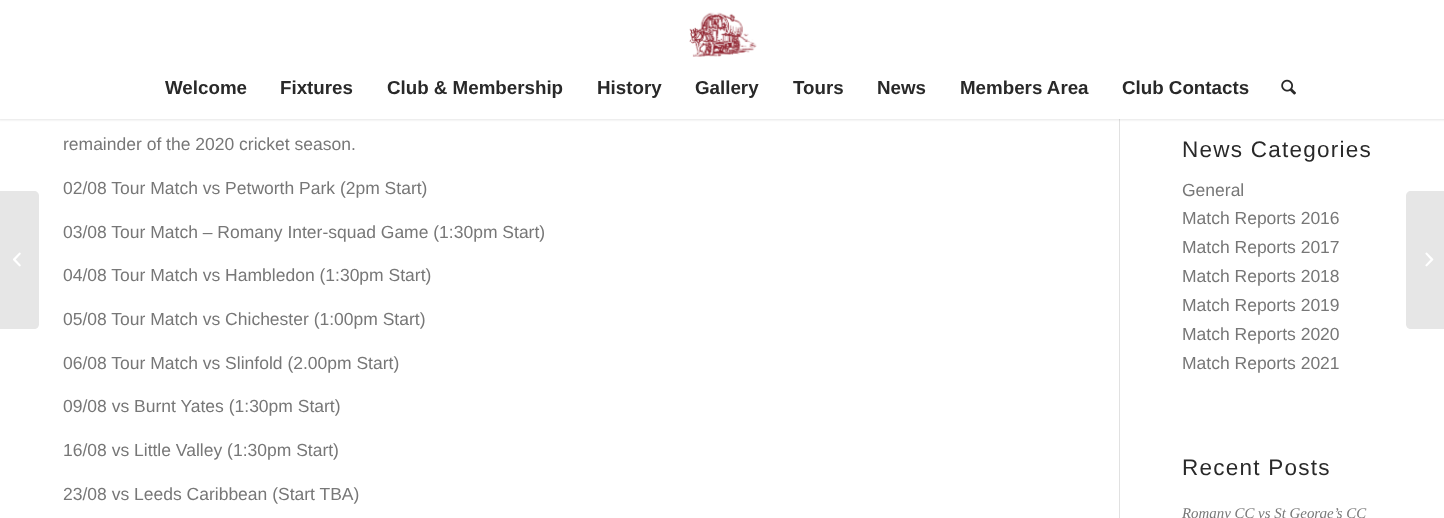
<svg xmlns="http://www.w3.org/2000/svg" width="1444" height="518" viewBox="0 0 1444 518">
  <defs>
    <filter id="blur1" x="-50%" y="-200%" width="200%" height="500%"><feGaussianBlur stdDeviation="1"/></filter>
  </defs>
  <rect width="100%" height="100%" fill="#ffffff"/>
  <rect x="1119" y="119" width="1" height="399" fill="#e1e1e1"/>
  <rect x="-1" y="-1" width="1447" height="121" fill="#000000" fill-opacity="0.1" filter="url(#blur1)"/>
  <rect x="0" y="0" width="1444" height="119" fill="#ffffff"/>
  <image x="689" y="12" width="68" height="45" href="img1.png"/>
  <text x="165" y="94" font-family="Liberation Sans" font-size="18.75" font-weight="bold" fill="#292929">Welcome</text>
  <text x="280" y="94" font-family="Liberation Sans" font-size="18.75" font-weight="bold" fill="#292929">Fixtures</text>
  <text x="387" y="94" font-family="Liberation Sans" font-size="18.75" font-weight="bold" fill="#292929">Club &amp; Membership</text>
  <text x="597" y="94" font-family="Liberation Sans" font-size="18.75" font-weight="bold" fill="#292929">History</text>
  <text x="695" y="94" font-family="Liberation Sans" font-size="18.75" font-weight="bold" fill="#292929">Gallery</text>
  <text x="793" y="94" font-family="Liberation Sans" font-size="18.75" font-weight="bold" fill="#292929">Tours</text>
  <text x="877" y="94" font-family="Liberation Sans" font-size="18.75" font-weight="bold" fill="#292929">News</text>
  <text x="960" y="94" font-family="Liberation Sans" font-size="18.75" font-weight="bold" fill="#292929">Members Area</text>
  <text x="1122" y="94" font-family="Liberation Sans" font-size="18.75" font-weight="bold" fill="#292929">Club Contacts</text>
  <image x="1281" y="79" width="15" height="16" href="img2.png"/>
  <path d="M0 191H34C37 191 39 193 39 196V324C39 327 37 329 34 329H0Z" fill="#e6e6e6"/>
  <image x="13" y="252" width="8" height="15" href="img3.png"/>
  <text x="63" y="150" font-family="Liberation Sans" font-size="17.5" fill="#777777">remainder of the 2020 cricket season.</text>
  <text x="63" y="194" font-family="Liberation Sans" font-size="17.5" fill="#777777">02/08 Tour Match vs Petworth Park (2pm Start)</text>
  <text x="63" y="238" font-family="Liberation Sans" font-size="17.5" fill="#777777">03/08 Tour Match – Romany Inter-squad Game (1:30pm Start)</text>
  <text x="63" y="281" font-family="Liberation Sans" font-size="17.5" fill="#777777">04/08 Tour Match vs Hambledon (1:30pm Start)</text>
  <text x="63" y="325" font-family="Liberation Sans" font-size="17.5" fill="#777777">05/08 Tour Match vs Chichester (1:00pm Start)</text>
  <text x="63" y="369" font-family="Liberation Sans" font-size="17.5" fill="#777777">06/08 Tour Match vs Slinfold (2.00pm Start)</text>
  <text x="63" y="412" font-family="Liberation Sans" font-size="17.5" fill="#777777">09/08 vs Burnt Yates (1:30pm Start)</text>
  <text x="63" y="456" font-family="Liberation Sans" font-size="17.5" fill="#777777">16/08 vs Little Valley (1:30pm Start)</text>
  <text x="63" y="500" font-family="Liberation Sans" font-size="17.5" fill="#777777">23/08 vs Leeds Caribbean (Start TBA)</text>
  <text x="1182" y="157" font-family="Liberation Sans" font-size="22.5" letter-spacing="1.25" fill="#292929">News Categories</text>
  <text x="1182" y="196" font-family="Liberation Sans" font-size="17.5" fill="#777777">General</text>
  <text x="1182" y="224" font-family="Liberation Sans" font-size="17.5" fill="#777777">Match Reports 2016</text>
  <text x="1182" y="253" font-family="Liberation Sans" font-size="17.5" fill="#777777">Match Reports 2017</text>
  <text x="1182" y="282" font-family="Liberation Sans" font-size="17.5" fill="#777777">Match Reports 2018</text>
  <text x="1182" y="311" font-family="Liberation Sans" font-size="17.5" fill="#777777">Match Reports 2019</text>
  <text x="1182" y="340" font-family="Liberation Sans" font-size="17.5" fill="#777777">Match Reports 2020</text>
  <text x="1182" y="369" font-family="Liberation Sans" font-size="17.5" fill="#777777">Match Reports 2021</text>
  <text x="1182" y="475" font-family="Liberation Sans" font-size="22.5" letter-spacing="1.25" fill="#292929">Recent Posts</text>
  <text x="1182" y="518" font-family="Liberation Serif" font-size="14.9" font-style="italic" fill="#777777">Romany CC vs St George’s CC</text>
  <path d="M1411 191H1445V329H1411C1408 329 1406 327 1406 324V196C1406 193 1408 191 1411 191Z" fill="#e6e6e6"/>
  <image x="1425" y="252" width="9" height="15" href="img4.png"/>
</svg>
